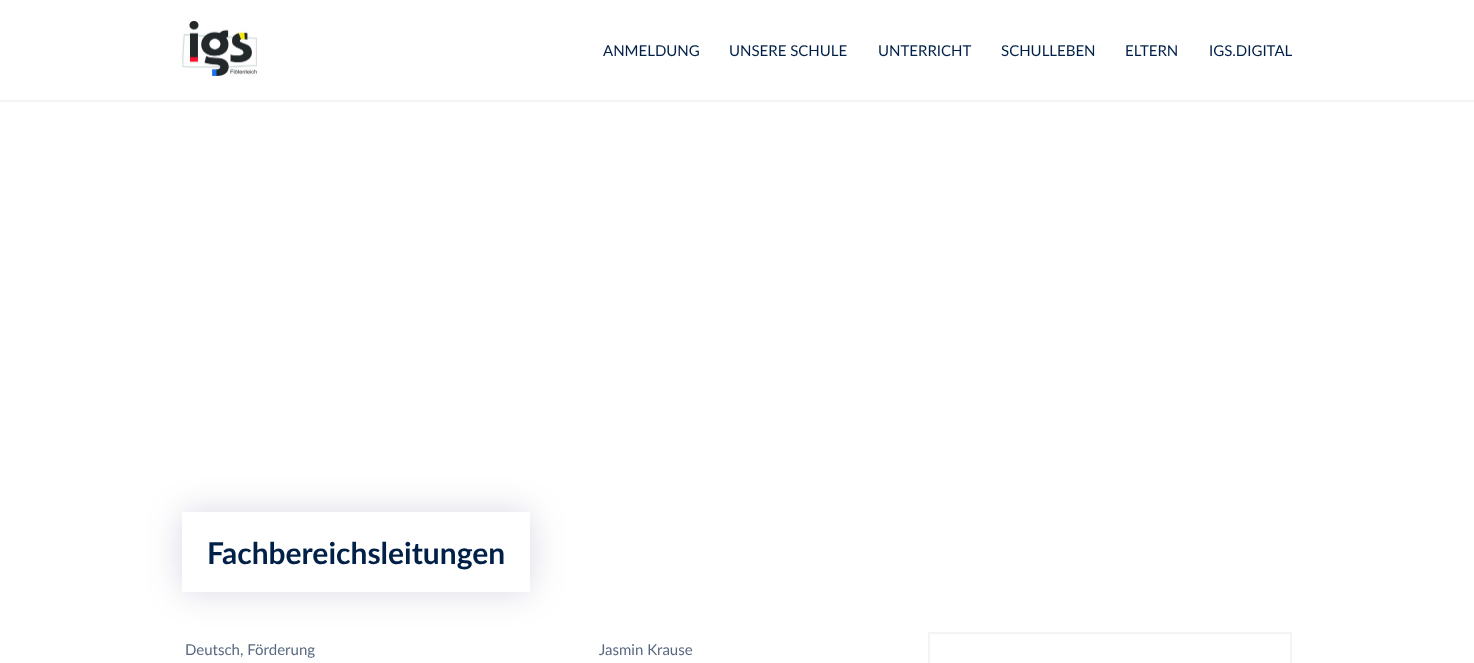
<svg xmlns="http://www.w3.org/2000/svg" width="1474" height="663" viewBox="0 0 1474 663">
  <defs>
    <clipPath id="clip1"><path d="M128 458H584V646H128ZM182 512H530V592H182Z" clip-rule="evenodd"/></clipPath>
    <filter id="blur1" x="-50%" y="-200%" width="200%" height="500%"><feGaussianBlur stdDeviation="17.5"/></filter>
  </defs>
  <rect width="100%" height="100%" fill="#ffffff"/>
  <rect x="0" y="100" width="1474" height="2" fill="#f3f4f6"/>
  <image x="182" y="21" width="75" height="55" href="img1.png"/>
  <text x="603" y="56" font-family="Lato" font-size="15" fill="#002047">ANMELDUNG</text>
  <text x="729" y="56" font-family="Lato" font-size="15" fill="#002047">UNSERE SCHULE</text>
  <text x="878" y="56" font-family="Lato" font-size="15" fill="#002047">UNTERRICHT</text>
  <text x="1001" y="56" font-family="Lato" font-size="15" fill="#002047">SCHULLEBEN</text>
  <text x="1125" y="56" font-family="Lato" font-size="15" fill="#002047">ELTERN</text>
  <text x="1209" y="56" font-family="Lato" font-size="15" fill="#002047">IGS.DIGITAL</text>
  <g clip-path="url(#clip1)">
    <rect x="182" y="512" width="348" height="80" fill="#002047" fill-opacity="0.15" filter="url(#blur1)"/>
  </g>
  <text x="207" y="564" font-family="Lato" font-size="30" font-weight="bold" fill="#002047">Fachbereichsleitungen</text>
  <text x="185" y="655" font-family="Lato" font-size="15" fill="#596a80">Deutsch, Förderung</text>
  <text x="599" y="655" font-family="Lato" font-size="15" fill="#596a80">Jasmin Krause</text>
  <rect x="929" y="633" width="362" height="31" fill="none" stroke="#f3f4f6" stroke-width="2"/>
</svg>
